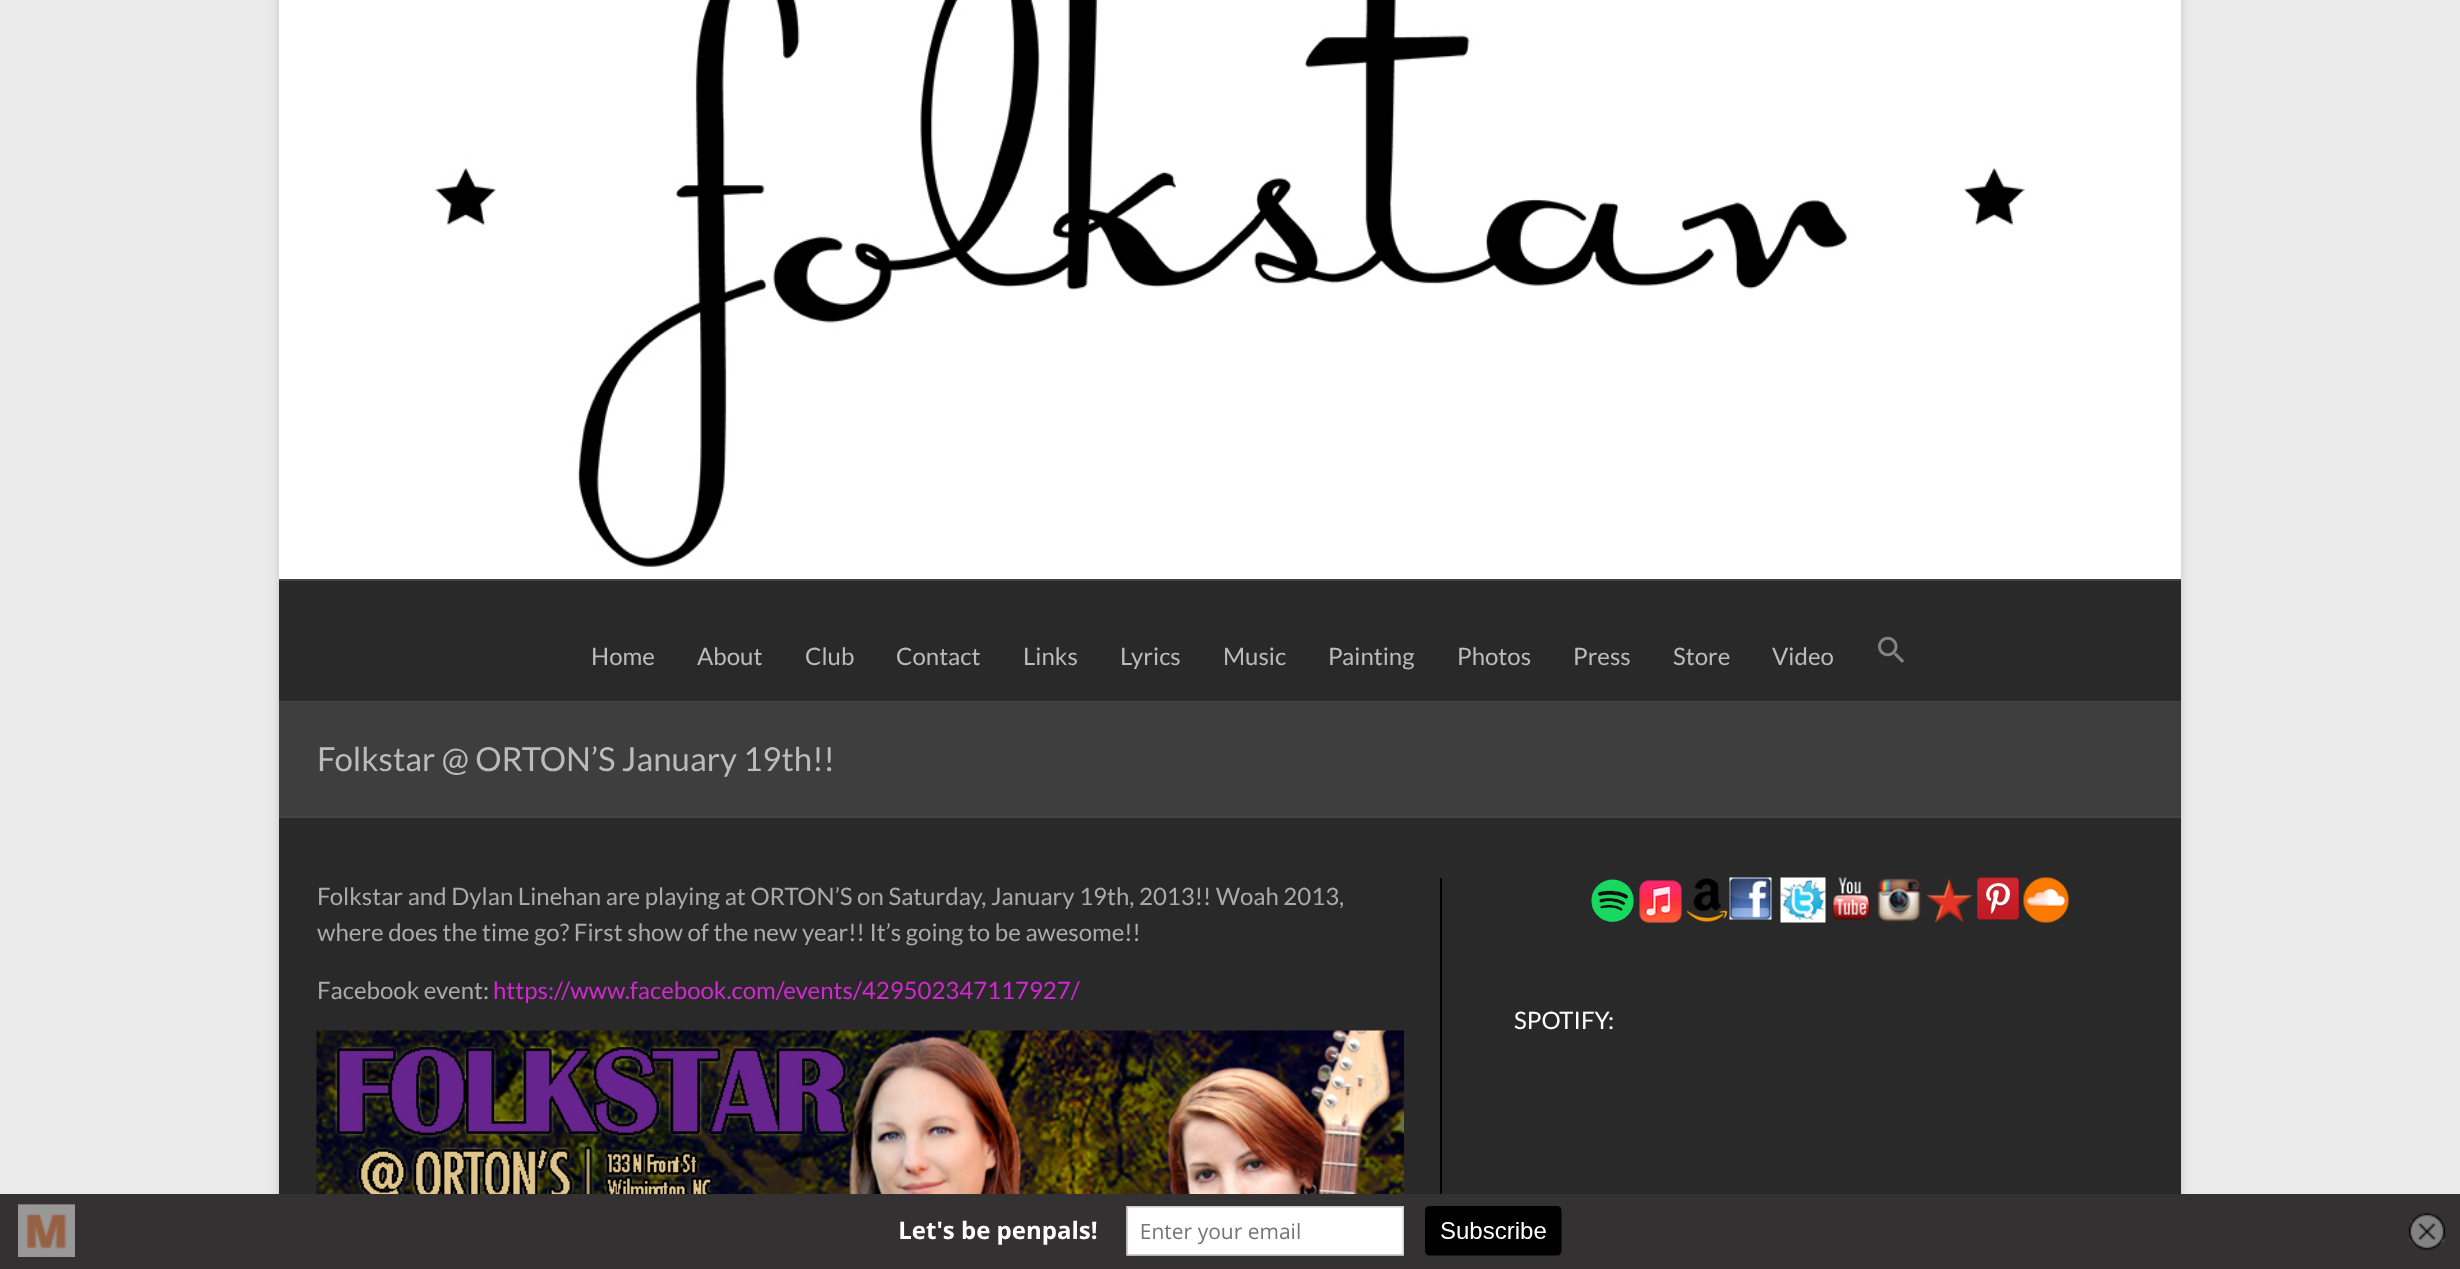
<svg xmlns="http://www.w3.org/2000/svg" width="2460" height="1269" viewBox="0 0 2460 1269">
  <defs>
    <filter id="blur1" x="-50%" y="-200%" width="200%" height="500%"><feGaussianBlur stdDeviation="4.5"/></filter>
  </defs>
  <rect width="100%" height="100%" fill="#eaeaea"/>
  <rect x="279" y="-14" width="1902" height="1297" fill="#646464" fill-opacity="0.3" filter="url(#blur1)"/>
  <rect x="279" y="581" width="1902" height="613" fill="#292929"/>
  <image x="279" y="0" width="1902" height="579" href="img1.png"/>
  <rect x="279" y="579" width="1902" height="2" fill="#444444"/>
  <rect x="279" y="701" width="1902" height="1" fill="#444444"/>
  <text x="591" y="665" font-family="Lato" font-size="24" fill="#bbbbbb">Home</text>
  <text x="697" y="665" font-family="Lato" font-size="24" fill="#bbbbbb">About</text>
  <text x="805" y="665" font-family="Lato" font-size="24" fill="#bbbbbb">Club</text>
  <text x="896" y="665" font-family="Lato" font-size="24" fill="#bbbbbb">Contact</text>
  <text x="1023" y="665" font-family="Lato" font-size="24" fill="#bbbbbb">Links</text>
  <text x="1120" y="665" font-family="Lato" font-size="24" fill="#bbbbbb">Lyrics</text>
  <text x="1223" y="665" font-family="Lato" font-size="24" fill="#bbbbbb">Music</text>
  <text x="1328" y="665" font-family="Lato" font-size="24" fill="#bbbbbb">Painting</text>
  <text x="1457" y="665" font-family="Lato" font-size="24" fill="#bbbbbb">Photos</text>
  <text x="1573" y="665" font-family="Lato" font-size="24" fill="#bbbbbb">Press</text>
  <text x="1673" y="665" font-family="Lato" font-size="24" fill="#bbbbbb">Store</text>
  <text x="1772" y="665" font-family="Lato" font-size="24" fill="#bbbbbb">Video</text>
  <image x="1878" y="636" width="27" height="27" href="img2.png"/>
  <rect x="279" y="702" width="1902" height="114" fill="#3e3e3e"/>
  <rect x="279" y="816" width="1902" height="2" fill="#444444"/>
  <text x="317" y="771" font-family="Lato" font-size="33" fill="#bbbbbb">Folkstar @ ORTON’S January 19th!!</text>
  <rect x="1440" y="878" width="2" height="316" fill="#000000"/>
  <text x="317" y="905" font-family="Lato" font-size="24" fill="#aaaaaa">Folkstar and Dylan Linehan are playing at ORTON’S on Saturday, January 19th, 2013!! Woah 2013,</text>
  <text x="317" y="941" font-family="Lato" font-size="24" fill="#aaaaaa">where does the time go? First show of the new year!! It’s going to be awesome!!</text>
  <text x="317" y="999" font-family="Lato" font-size="24" fill="#aaaaaa">Facebook event:</text>
  <text x="493" y="999" font-family="Lato" font-size="24" fill="#d129d1">https://www.facebook.com/events/429502347117927/</text>
  <image x="316" y="1030" width="1088" height="164" href="img3.png"/>
  <image x="1591" y="879" width="43" height="44" href="img4.png"/>
  <image x="1639" y="880" width="43" height="43" href="img5.png"/>
  <image x="1686" y="878" width="42" height="44" href="img6.png"/>
  <image x="1729" y="877" width="43" height="43" href="img7.png"/>
  <image x="1780" y="877" width="46" height="46" href="img8.png"/>
  <image x="1832" y="877" width="38" height="43" href="img9.png"/>
  <image x="1877" y="878" width="44" height="44" href="img10.png"/>
  <image x="1926" y="878" width="47" height="45" href="img11.png"/>
  <image x="1977" y="877" width="42" height="43" href="img12.png"/>
  <image x="2023" y="877" width="46" height="46" href="img13.png"/>
  <text x="1514" y="1029" font-family="Lato" font-size="24" fill="#ffffff">SPOTIFY:</text>
  <image x="0" y="1194" width="2460" height="75" href="img14.png"/>
</svg>
